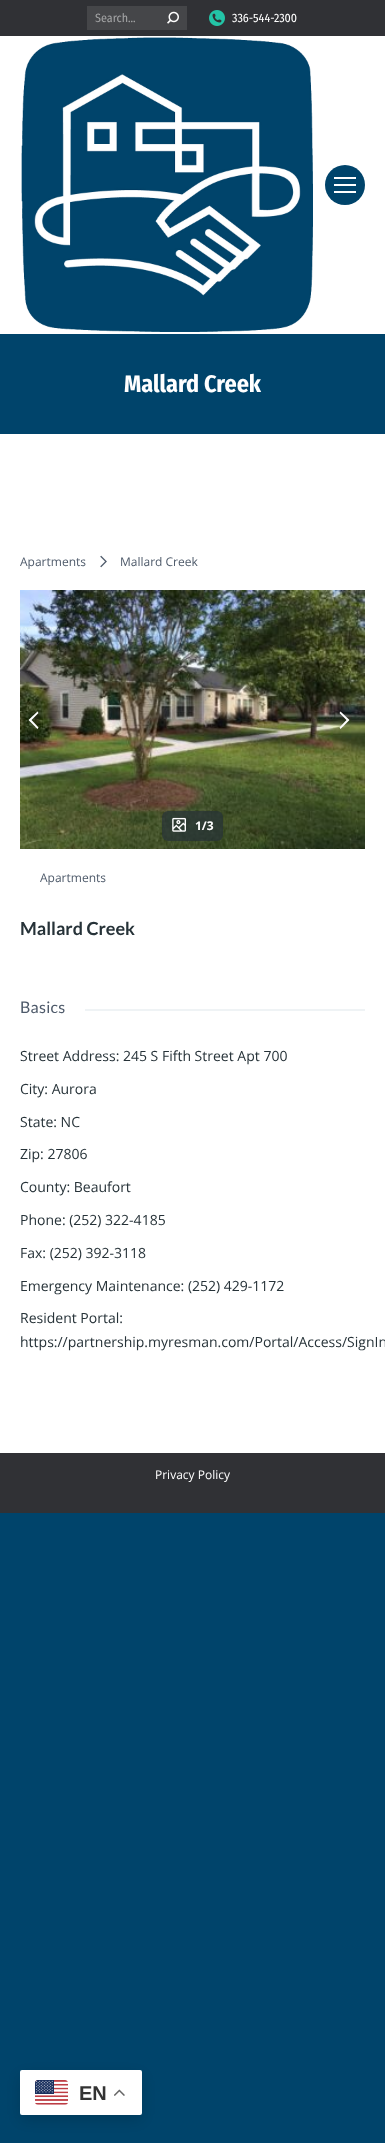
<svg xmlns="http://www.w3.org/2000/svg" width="385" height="2143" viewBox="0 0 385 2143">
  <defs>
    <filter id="blur1" x="-50%" y="-200%" width="200%" height="500%"><feGaussianBlur stdDeviation="7.5"/></filter>
  </defs>
  <rect width="100%" height="100%" fill="#00446b"/>
  <rect x="0" y="36" width="385" height="1417" fill="#ffffff"/>
  <rect x="0" y="0" width="385" height="36" fill="#303135"/>
  <rect x="87" y="6" width="100" height="24" fill="#454649"/>
  <text x="95" y="22" font-family="Fira Sans Condensed" font-size="12" fill="#a2a3a4">Search...</text>
  <image x="167" y="11" width="12" height="13" href="img1.png"/>
  <image x="209" y="10" width="16" height="16" href="img2.png"/>
  <text x="232" y="22" font-family="Fira Sans Condensed" font-size="12" fill="#ffffff">336-544-2300</text>
  <image x="21" y="37" width="292" height="295" href="img3.png"/>
  <circle cx="345" cy="185" r="20" fill="#00446b"/>
  <rect x="334" y="177" width="22" height="2" fill="#ffffff"/>
  <rect x="334" y="184" width="22" height="2" fill="#ffffff"/>
  <rect x="334" y="191" width="22" height="2" fill="#ffffff"/>
  <rect x="0" y="334" width="385" height="100" fill="#00446b"/>
  <text x="124" y="392" font-family="Fira Sans Condensed" font-size="24" font-weight="bold" fill="#ffffff">Mallard Creek</text>
  <text x="20" y="566" font-family="Open Sans" font-size="12" fill="#4e5a6a">Apartments</text>
  <image x="100" y="555" width="7" height="13" href="img4.png"/>
  <text x="120" y="566" font-family="Open Sans" font-size="12" fill="#4e5a6a">Mallard Creek</text>
  <image x="20" y="590" width="345" height="259" href="img5.png"/>
  <path d="M31.5 720L38.5 727.5L37.5 729L28.5 720L37.5 711.5L38.5 713Z" fill="#ffffff"/>
  <path d="M346.5 720L339.5 713L340.5 711.5L349.5 720L340.5 729L339.5 727.5Z" fill="#ffffff"/>
  <rect x="162" y="811" width="61" height="30" rx="6" fill="#263238" fill-opacity="0.7"/>
  <image x="172" y="817" width="14" height="15" href="img6.png"/>
  <text x="195" y="830" font-family="Open Sans" font-size="12" font-weight="bold" fill="#ffffff">1/3</text>
  <text x="40" y="882" font-family="Open Sans" font-size="12" fill="#4e5a6a">Apartments</text>
  <text x="20" y="935" font-family="Lato" font-size="18" font-weight="bold" fill="#263238">Mallard Creek</text>
  <text x="20" y="1013" font-family="Lato" font-size="16" letter-spacing="0.25" fill="#4e5a6a">Basics</text>
  <rect x="85" y="1009" width="280" height="2" fill="#eff3f5"/>
  <text x="20" y="1061" font-family="Open Sans" font-size="14" fill="#263238">Street Address: 245 S Fifth Street Apt 700</text>
  <text x="20" y="1094" font-family="Open Sans" font-size="14" fill="#263238">City: Aurora</text>
  <text x="20" y="1127" font-family="Open Sans" font-size="14" fill="#263238">State: NC</text>
  <text x="20" y="1159" font-family="Open Sans" font-size="14" fill="#263238">Zip: 27806</text>
  <text x="20" y="1192" font-family="Open Sans" font-size="14" fill="#263238">County: Beaufort</text>
  <text x="20" y="1225" font-family="Open Sans" font-size="14" fill="#263238">Phone: (252) 322-4185</text>
  <text x="20" y="1258" font-family="Open Sans" font-size="14" fill="#263238">Fax: (252) 392-3118</text>
  <text x="20" y="1291" font-family="Open Sans" font-size="14" fill="#263238">Emergency Maintenance: (252) 429-1172</text>
  <text x="20" y="1323" font-family="Open Sans" font-size="14" fill="#263238">Resident Portal:</text>
  <text x="20" y="1347" font-family="Open Sans" font-size="14" fill="#263238">https://partnership.myresman.com/Portal/Access/SignIn</text>
  <rect x="0" y="1453" width="385" height="60" fill="#303135"/>
  <text x="155" y="1479" font-family="Open Sans" font-size="12" fill="#ffffff">Privacy Policy</text>
  <rect x="20" y="2075" width="122" height="45" rx="2" fill="#000000" fill-opacity="0.15" filter="url(#blur1)"/>
  <rect x="20" y="2070" width="122" height="45" rx="2" fill="#ffffff"/>
  <image x="35" y="2080" width="33" height="25" href="img7.png"/>
  <text x="79" y="2100" font-family="Liberation Sans" font-size="20" font-weight="bold" fill="#333333">EN</text>
  <image x="114" y="2089" width="11" height="7" href="img8.png"/>
</svg>
